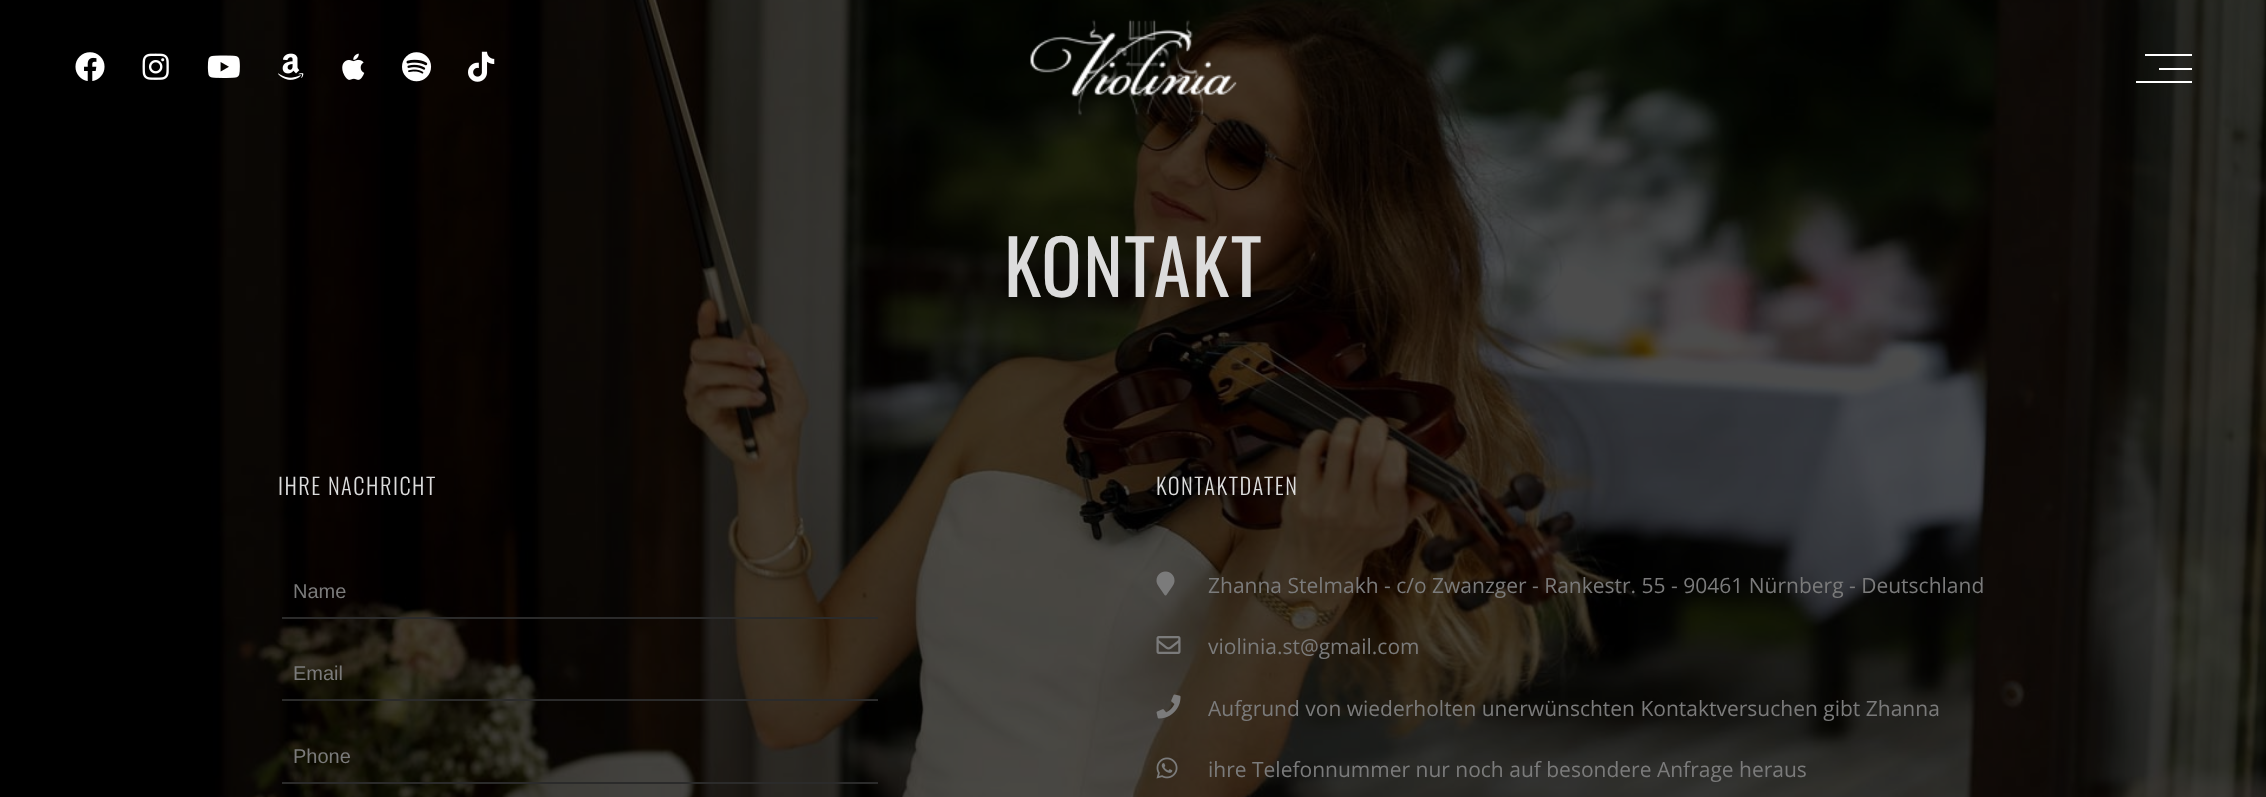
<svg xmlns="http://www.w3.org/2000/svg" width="2266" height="797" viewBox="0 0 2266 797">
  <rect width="100%" height="100%" fill="#ffffff"/>
  <image x="0" y="0" width="2266" height="797" href="img1.png"/>
  <image x="75" y="52" width="30" height="29" href="img2.png"/>
  <image x="142" y="53" width="27" height="27" href="img3.png"/>
  <image x="207" y="55" width="33" height="23" href="img4.png"/>
  <image x="278" y="53" width="26" height="27" href="img5.png"/>
  <image x="342" y="53" width="23" height="27" href="img6.png"/>
  <image x="402" y="52" width="30" height="30" href="img7.png"/>
  <image x="468" y="51" width="27" height="31" href="img8.png"/>
  <image x="1030" y="19" width="207" height="97" href="img9.png"/>
  <rect x="2145" y="54" width="47" height="2" fill="#ffffff"/>
  <rect x="2159" y="68" width="33" height="2" fill="#ffffff"/>
  <rect x="2136" y="81" width="56" height="2" fill="#ffffff"/>
  <text x="1004" y="297" font-family="Oswald" font-size="75" letter-spacing="1.5" fill="#dcdcdc">KONTAKT</text>
  <text x="278" y="495" font-family="Oswald" font-size="22.5" font-weight="300" letter-spacing="1.5" fill="#dcdcdc">IHRE NACHRICHT</text>
  <rect x="282" y="617" width="596" height="2" fill="#2b2b2b"/>
  <text x="293" y="598" font-family="Liberation Sans" font-size="20" fill="#7b7b7b">Name</text>
  <rect x="282" y="699" width="596" height="2" fill="#2b2b2b"/>
  <text x="293" y="680" font-family="Liberation Sans" font-size="20" fill="#7b7b7b">Email</text>
  <rect x="282" y="782" width="596" height="2" fill="#2b2b2b"/>
  <text x="293" y="763" font-family="Liberation Sans" font-size="20" fill="#7b7b7b">Phone</text>
  <text x="1156" y="495" font-family="Oswald" font-size="22.5" font-weight="300" letter-spacing="1.5" fill="#dcdcdc">KONTAKTDATEN</text>
  <image x="1156" y="571" width="19" height="25" href="img10.png"/>
  <text x="1208" y="593" font-family="Open Sans" font-size="21" fill="#7b7b7b">Zhanna Stelmakh - c/o Zwanzger - Rankestr. 55 - 90461 Nürnberg - Deutschland</text>
  <image x="1156" y="636" width="25" height="18" href="img11.png"/>
  <text x="1208" y="654" font-family="Open Sans" font-size="21" fill="#7b7b7b">violinia.st@gmail.com</text>
  <image x="1156" y="694" width="25" height="25" href="img12.png"/>
  <text x="1208" y="716" font-family="Open Sans" font-size="21" fill="#7b7b7b">Aufgrund von wiederholten unerwünschten Kontaktversuchen gibt Zhanna</text>
  <image x="1156" y="757" width="22" height="22" href="img13.png"/>
  <text x="1208" y="777" font-family="Open Sans" font-size="21" fill="#7b7b7b">ihre Telefonnummer nur noch auf besondere Anfrage heraus</text>
</svg>
